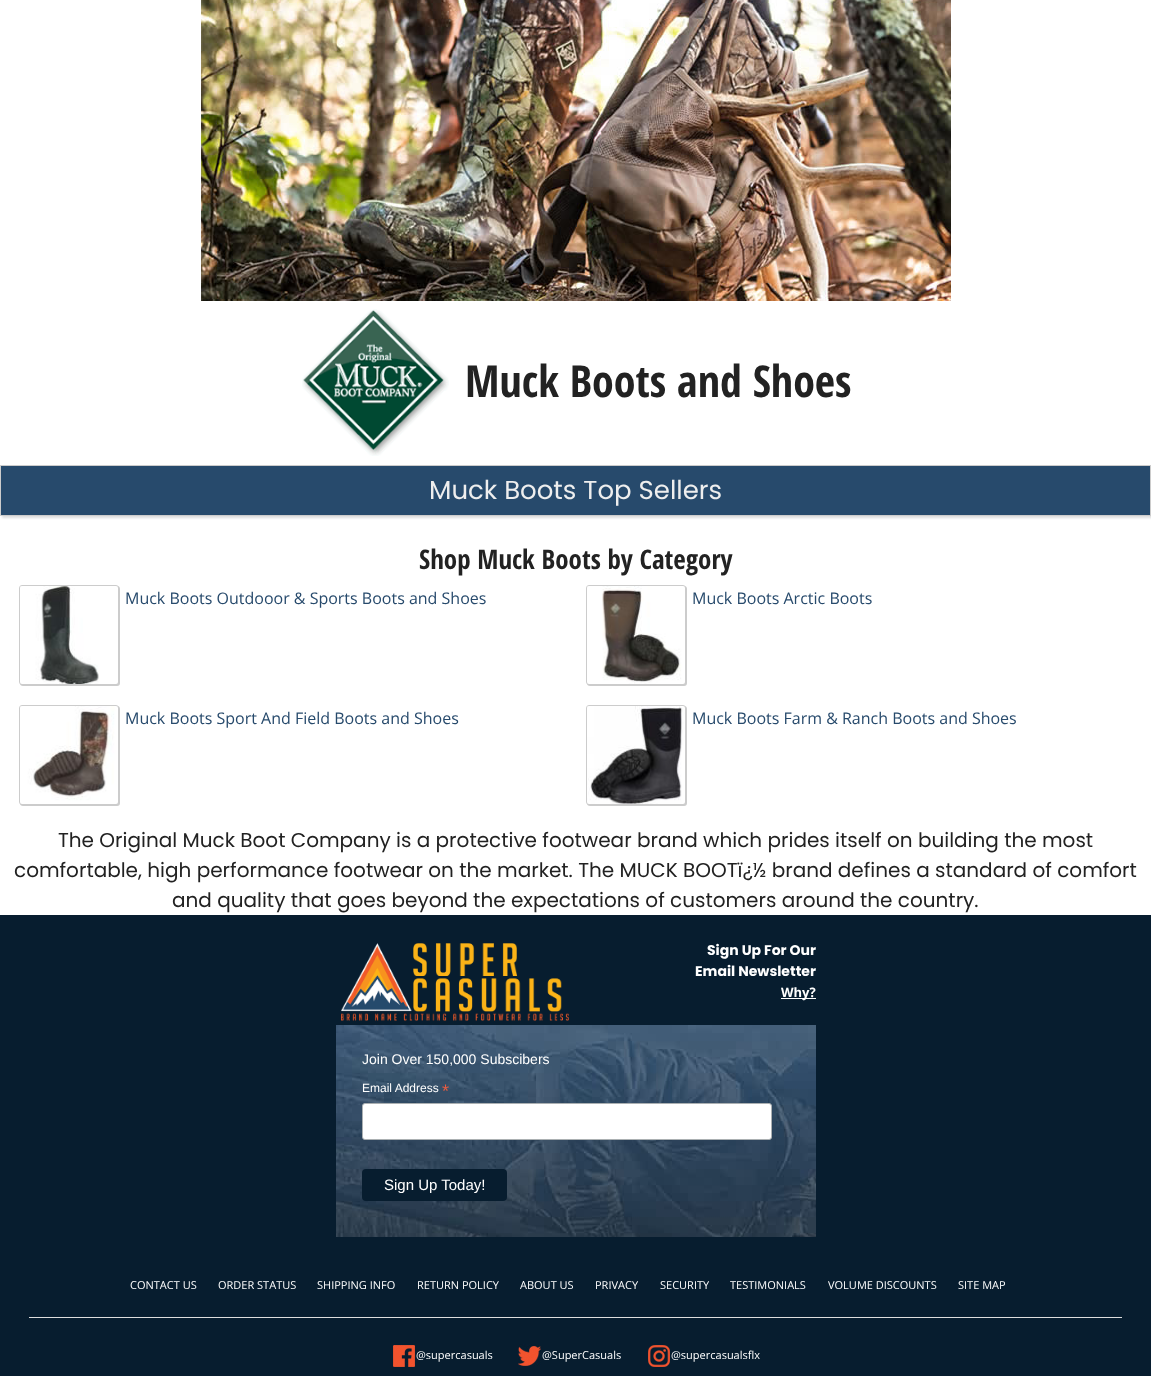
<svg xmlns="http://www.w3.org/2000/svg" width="1151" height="1376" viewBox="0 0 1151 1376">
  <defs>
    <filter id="blur1" x="-50%" y="-200%" width="200%" height="500%"><feGaussianBlur stdDeviation="1"/></filter>
    <filter id="blur2" x="-50%" y="-200%" width="200%" height="500%"><feGaussianBlur stdDeviation="0.5"/></filter>
  </defs>
  <rect width="100%" height="100%" fill="#ffffff"/>
  <image x="201" y="0" width="750" height="301" href="img1.png"/>
  <image x="302" y="309" width="147" height="147" href="img2.png"/>
  <text x="465" y="397" font-family="Open Sans Condensed" font-size="44" font-weight="bold" fill="#222222">Muck Boots and Shoes</text>
  <rect x="2" y="467" width="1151" height="51" fill="#dddddd" filter="url(#blur1)"/>
  <rect x="0.5" y="465.5" width="1150" height="50" fill="none" stroke="#cccccc"/>
  <rect x="1" y="466" width="1149" height="49" fill="#274a6c"/>
  <text x="429" y="499" font-family="Poppins" font-size="26" fill="#eeeeee">Muck Boots Top Sellers</text>
  <text x="419" y="569" font-family="Open Sans Condensed" font-size="27" font-weight="bold" fill="#222222">Shop Muck Boots by Category</text>
  <rect x="20" y="586" width="100" height="100" rx="3" fill="#cccccc" filter="url(#blur2)"/>
  <rect x="19.5" y="585.5" width="99" height="99" rx="2.5" fill="none" stroke="#cccccc"/>
  <image x="20" y="586" width="98" height="98" href="img3.png"/>
  <text x="125" y="604" font-family="Open Sans" font-size="16" fill="#274a6c">Muck Boots Outdooor &amp; Sports Boots and Shoes</text>
  <rect x="587" y="586" width="100" height="100" rx="3" fill="#cccccc" filter="url(#blur2)"/>
  <rect x="586.5" y="585.5" width="99" height="99" rx="2.5" fill="none" stroke="#cccccc"/>
  <image x="587" y="586" width="98" height="98" href="img4.png"/>
  <text x="692" y="604" font-family="Open Sans" font-size="16" fill="#274a6c">Muck Boots Arctic Boots</text>
  <rect x="20" y="706" width="100" height="100" rx="3" fill="#cccccc" filter="url(#blur2)"/>
  <rect x="19.5" y="705.5" width="99" height="99" rx="2.5" fill="none" stroke="#cccccc"/>
  <image x="20" y="706" width="98" height="98" href="img5.png"/>
  <text x="125" y="724" font-family="Open Sans" font-size="16" fill="#274a6c">Muck Boots Sport And Field Boots and Shoes</text>
  <rect x="587" y="706" width="100" height="100" rx="3" fill="#cccccc" filter="url(#blur2)"/>
  <rect x="586.5" y="705.5" width="99" height="99" rx="2.5" fill="none" stroke="#cccccc"/>
  <image x="587" y="706" width="98" height="98" href="img6.png"/>
  <text x="692" y="724" font-family="Open Sans" font-size="16" fill="#274a6c">Muck Boots Farm &amp; Ranch Boots and Shoes</text>
  <text x="58" y="847" font-family="Poppins" font-size="20" fill="#222222">The Original Muck Boot Company is a protective footwear brand which prides itself on building the most</text>
  <text x="14" y="877" font-family="Poppins" font-size="20" fill="#222222">comfortable, high performance footwear on the market. The MUCK BOOTï¿½ brand defines a standard of comfort</text>
  <text x="172" y="907" font-family="Poppins" font-size="20" fill="#222222">and quality that goes beyond the expectations of customers around the country.</text>
  <rect x="0" y="915" width="1151" height="461" fill="#071d2f"/>
  <image x="341" y="943" width="228" height="78" href="img7.png"/>
  <text x="707" y="955" font-family="Poppins" font-size="14" font-weight="bold" fill="#ffffff">Sign Up For Our</text>
  <text x="695" y="976" font-family="Poppins" font-size="14" font-weight="bold" fill="#ffffff">Email Newsletter</text>
  <rect x="781" y="998" width="35" height="1" fill="#ffffff"/>
  <text x="781" y="997" font-family="Open Sans" font-size="13" font-weight="bold" fill="#ffffff">Why?</text>
  <image x="336" y="1025" width="480" height="212" href="img8.png"/>
  <text x="362" y="1064" font-family="Liberation Sans" font-size="14" fill="#ffffff">Join Over 150,000 Subscibers</text>
  <text x="362" y="1092" font-family="Liberation Sans" font-size="12" fill="#ffffff">Email Address</text>
  <text x="442" y="1097" font-family="Liberation Sans" font-size="18" fill="#e85c41">*</text>
  <rect x="362.5" y="1103.5" width="409" height="36" rx="2.5" fill="#ffffff" stroke="#abb0b2"/>
  <rect x="362" y="1169" width="145" height="32" rx="4" fill="#071d2f"/>
  <text x="384" y="1190" font-family="Liberation Sans" font-size="15" fill="#ffffff">Sign Up Today!</text>
  <text x="130" y="1289" font-family="Open Sans" font-size="11" fill="#ffffff">CONTACT US</text>
  <text x="218" y="1289" font-family="Open Sans" font-size="11" fill="#ffffff">ORDER STATUS</text>
  <text x="317" y="1289" font-family="Open Sans" font-size="11" fill="#ffffff">SHIPPING INFO</text>
  <text x="417" y="1289" font-family="Open Sans" font-size="11" fill="#ffffff">RETURN POLICY</text>
  <text x="520" y="1289" font-family="Open Sans" font-size="11" fill="#ffffff">ABOUT US</text>
  <text x="595" y="1289" font-family="Open Sans" font-size="11" fill="#ffffff">PRIVACY</text>
  <text x="660" y="1289" font-family="Open Sans" font-size="11" fill="#ffffff">SECURITY</text>
  <text x="730" y="1289" font-family="Open Sans" font-size="11" fill="#ffffff">TESTIMONIALS</text>
  <text x="828" y="1289" font-family="Open Sans" font-size="11" fill="#ffffff">VOLUME DISCOUNTS</text>
  <text x="958" y="1289" font-family="Open Sans" font-size="11" fill="#ffffff">SITE MAP</text>
  <rect x="29" y="1317" width="1093" height="1" fill="#dddddd"/>
  <image x="393" y="1345" width="22" height="22" href="img9.png"/>
  <text x="416" y="1359" font-family="Open Sans" font-size="11" fill="#ffffff">@supercasuals</text>
  <image x="518" y="1344" width="23" height="22" href="img10.png"/>
  <text x="542" y="1359" font-family="Open Sans" font-size="11" fill="#ffffff">@SuperCasuals</text>
  <image x="648" y="1345" width="22" height="22" href="img11.png"/>
  <text x="671" y="1359" font-family="Open Sans" font-size="11" fill="#ffffff">@supercasualsflx</text>
</svg>
